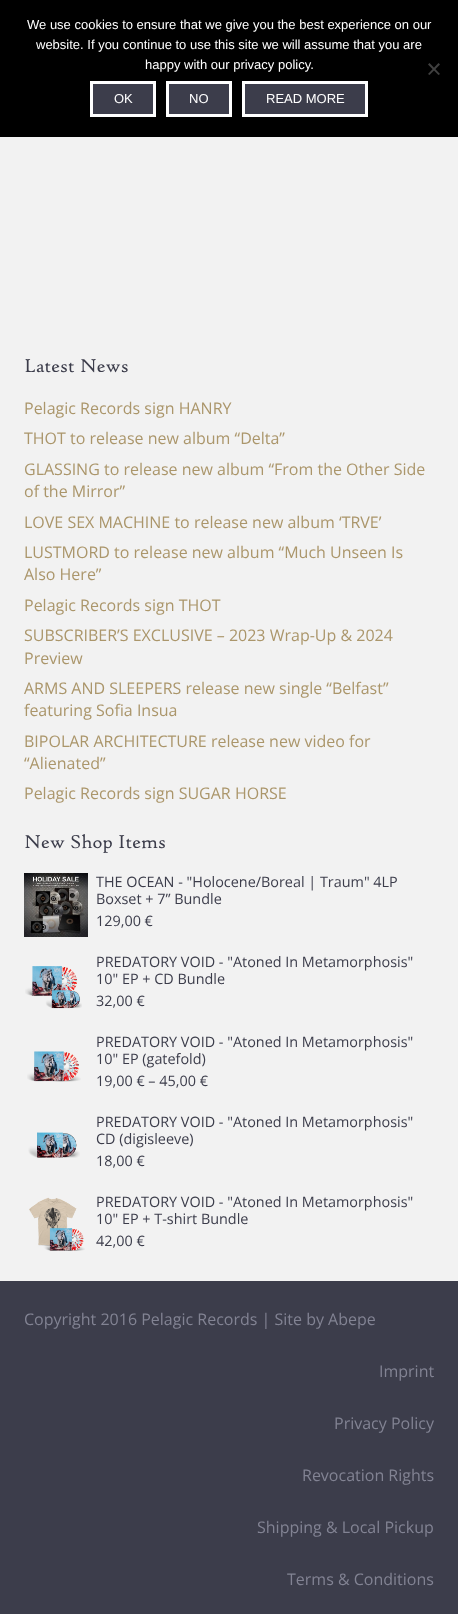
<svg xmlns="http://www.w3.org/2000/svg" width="458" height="1614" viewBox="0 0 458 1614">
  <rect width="100%" height="100%" fill="#f2f2f2"/>
  <rect x="0" y="0" width="458" height="137" fill="#000000"/>
  <text x="27" y="29" font-family="Liberation Sans" font-size="13" fill="#ffffff">We use cookies to ensure that we give you the best experience on our</text>
  <text x="36" y="49" font-family="Liberation Sans" font-size="13" fill="#ffffff">website. If you continue to use this site we will assume that you are</text>
  <text x="145" y="69" font-family="Liberation Sans" font-size="13" fill="#ffffff">happy with our privacy policy.</text>
  <path d="M438.5 63L440 64.5L429.5 75L428 74Z" fill="#404040"/>
  <path d="M428 64.5L429.5 63L440 74L438.5 75Z" fill="#404040"/>
  <rect x="93" y="84" width="60" height="30" fill="#3c3d4b"/>
  <rect x="91.5" y="82.5" width="63" height="33" fill="none" stroke="#ffffff" stroke-width="3"/>
  <text x="114" y="103" font-family="Liberation Sans" font-size="13" fill="#ffffff">OK</text>
  <rect x="169" y="84" width="60" height="30" fill="#3c3d4b"/>
  <rect x="167.5" y="82.5" width="63" height="33" fill="none" stroke="#ffffff" stroke-width="3"/>
  <text x="189" y="103" font-family="Liberation Sans" font-size="13" fill="#ffffff">NO</text>
  <rect x="245" y="84" width="120" height="30" fill="#3c3d4b"/>
  <rect x="243.5" y="82.5" width="123" height="33" fill="none" stroke="#ffffff" stroke-width="3"/>
  <text x="266" y="103" font-family="Liberation Sans" font-size="13" fill="#ffffff">READ MORE</text>
  <text x="24" y="372" font-family="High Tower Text" font-size="20" fill="#3c3d4b">Latest News</text>
  <text x="24" y="414" font-family="Open Sans" font-size="16" fill="#ab966b">Pelagic Records sign HANRY</text>
  <text x="24" y="444" font-family="Open Sans" font-size="16" fill="#ab966b">THOT to release new album “Delta”</text>
  <text x="24" y="475" font-family="Open Sans" font-size="16" fill="#ab966b">GLASSING to release new album “From the Other Side</text>
  <text x="24" y="497" font-family="Open Sans" font-size="16" fill="#ab966b">of the Mirror”</text>
  <text x="24" y="528" font-family="Open Sans" font-size="16" fill="#ab966b">LOVE SEX MACHINE to release new album ‘TRVE’</text>
  <text x="24" y="558" font-family="Open Sans" font-size="16" fill="#ab966b">LUSTMORD to release new album “Much Unseen Is</text>
  <text x="24" y="580" font-family="Open Sans" font-size="16" fill="#ab966b">Also Here”</text>
  <text x="24" y="611" font-family="Open Sans" font-size="16" fill="#ab966b">Pelagic Records sign THOT</text>
  <text x="24" y="641" font-family="Open Sans" font-size="16" fill="#ab966b">SUBSCRIBER’S EXCLUSIVE – 2023 Wrap-Up &amp; 2024</text>
  <text x="24" y="664" font-family="Open Sans" font-size="16" fill="#ab966b">Preview</text>
  <text x="24" y="694" font-family="Open Sans" font-size="16" fill="#ab966b">ARMS AND SLEEPERS release new single “Belfast”</text>
  <text x="24" y="716" font-family="Open Sans" font-size="16" fill="#ab966b">featuring Sofia Insua</text>
  <text x="24" y="747" font-family="Open Sans" font-size="16" fill="#ab966b">BIPOLAR ARCHITECTURE release new video for</text>
  <text x="24" y="769" font-family="Open Sans" font-size="16" fill="#ab966b">“Alienated”</text>
  <text x="24" y="799" font-family="Open Sans" font-size="16" fill="#ab966b">Pelagic Records sign SUGAR HORSE</text>
  <text x="24" y="848" font-family="High Tower Text" font-size="20" fill="#3c3d4b">New Shop Items</text>
  <image x="24" y="873" width="64" height="64" href="img1.png"/>
  <text x="96" y="887" font-family="Open Sans" font-size="14.4" fill="#3c3d4b">THE OCEAN - "Holocene/Boreal | Traum" 4LP</text>
  <text x="96" y="904" font-family="Open Sans" font-size="14.4" fill="#3c3d4b">Boxset + 7” Bundle</text>
  <text x="96" y="926" font-family="Open Sans" font-size="14.4" fill="#3c3d4b">129,00 €</text>
  <text x="96" y="967" font-family="Open Sans" font-size="14.4" fill="#3c3d4b">PREDATORY VOID - "Atoned In Metamorphosis"</text>
  <image x="25" y="966" width="57" height="43" href="img2.png"/>
  <text x="96" y="984" font-family="Open Sans" font-size="14.4" fill="#3c3d4b">10" EP + CD Bundle</text>
  <text x="96" y="1006" font-family="Open Sans" font-size="14.4" fill="#3c3d4b">32,00 €</text>
  <text x="96" y="1047" font-family="Open Sans" font-size="14.4" fill="#3c3d4b">PREDATORY VOID - "Atoned In Metamorphosis"</text>
  <image x="27" y="1051" width="54" height="31" href="img3.png"/>
  <text x="96" y="1064" font-family="Open Sans" font-size="14.4" fill="#3c3d4b">10" EP (gatefold)</text>
  <text x="96" y="1086" font-family="Open Sans" font-size="14.4" fill="#3c3d4b">19,00 € – 45,00 €</text>
  <text x="96" y="1127" font-family="Open Sans" font-size="14.4" fill="#3c3d4b">PREDATORY VOID - "Atoned In Metamorphosis"</text>
  <image x="28" y="1132" width="52" height="26" href="img4.png"/>
  <text x="96" y="1144" font-family="Open Sans" font-size="14.4" fill="#3c3d4b">CD (digisleeve)</text>
  <text x="96" y="1166" font-family="Open Sans" font-size="14.4" fill="#3c3d4b">18,00 €</text>
  <image x="29" y="1197" width="56" height="54" href="img5.png"/>
  <text x="96" y="1207" font-family="Open Sans" font-size="14.4" fill="#3c3d4b">PREDATORY VOID - "Atoned In Metamorphosis"</text>
  <text x="96" y="1224" font-family="Open Sans" font-size="14.4" fill="#3c3d4b">10" EP + T-shirt Bundle</text>
  <text x="96" y="1246" font-family="Open Sans" font-size="14.4" fill="#3c3d4b">42,00 €</text>
  <rect x="0" y="1281" width="458" height="333" fill="#3c3d4b"/>
  <text x="24" y="1325" font-family="Open Sans" font-size="16" fill="#828393">Copyright 2016 Pelagic Records | Site by Abepe</text>
  <text x="379" y="1377" font-family="Open Sans" font-size="16" fill="#828393">Imprint</text>
  <text x="334" y="1429" font-family="Open Sans" font-size="16" fill="#828393">Privacy Policy</text>
  <text x="302" y="1481" font-family="Open Sans" font-size="16" fill="#828393">Revocation Rights</text>
  <text x="257" y="1533" font-family="Open Sans" font-size="16" fill="#828393">Shipping &amp; Local Pickup</text>
  <text x="287" y="1585" font-family="Open Sans" font-size="16" fill="#828393">Terms &amp; Conditions</text>
</svg>
